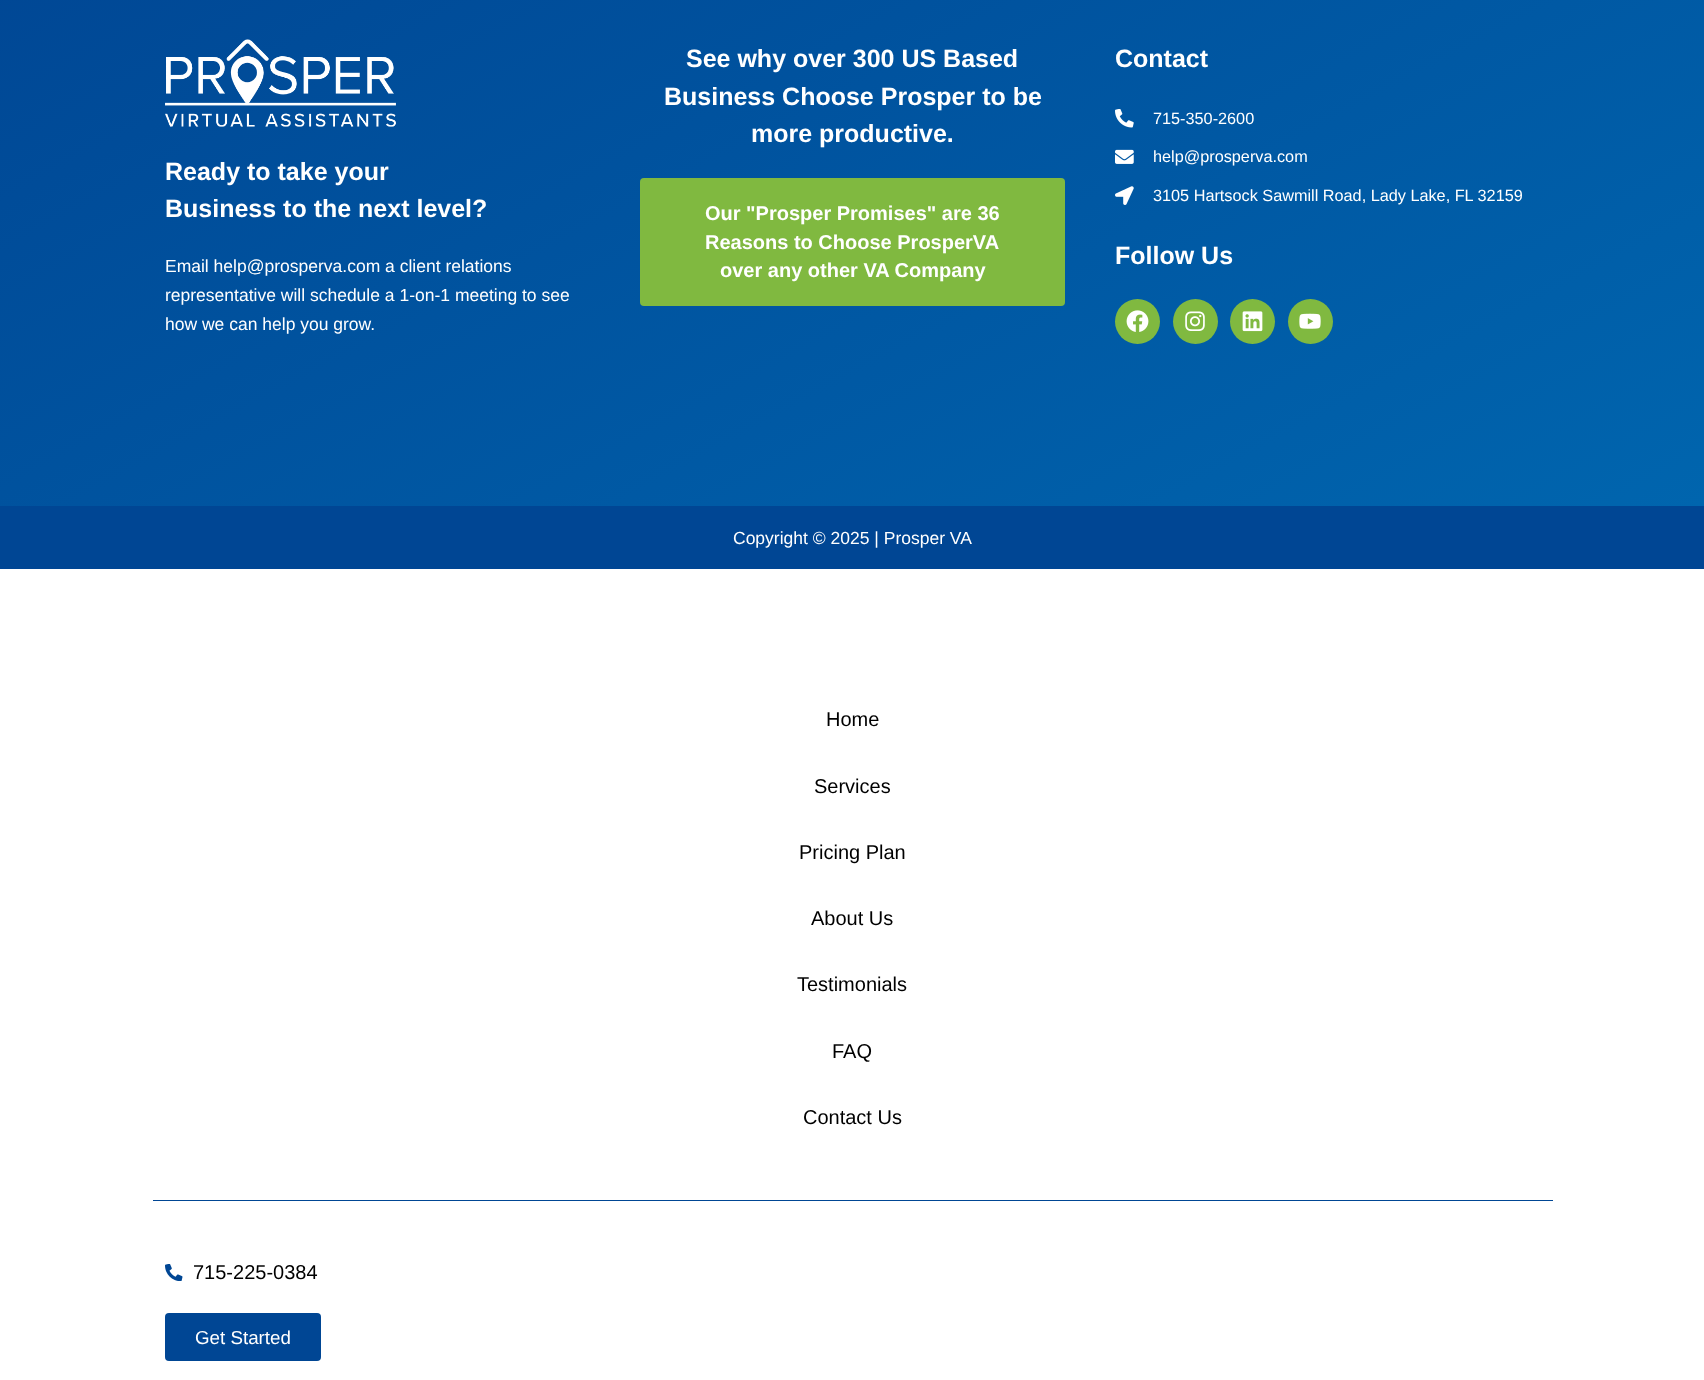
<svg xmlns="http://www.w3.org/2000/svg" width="1704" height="1380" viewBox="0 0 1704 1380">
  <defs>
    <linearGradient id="g1" gradientUnits="userSpaceOnUse" x1="542" y1="-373" x2="1163" y2="794"><stop offset="0" stop-color="#004694"/><stop offset="1" stop-color="#0065ae"/></linearGradient>
  </defs>
  <rect width="100%" height="100%" fill="#ffffff"/>
  <rect x="0" y="0" width="1704" height="506" fill="url(#g1)"/>
  <image x="165" y="39" width="231" height="88" href="img1.png"/>
  <text x="165" y="180" font-family="Liberation Sans" font-size="25" font-weight="bold" fill="#ffffff">Ready to take your</text>
  <text x="165" y="217" font-family="Liberation Sans" font-size="25" font-weight="bold" fill="#ffffff">Business to the next level?</text>
  <text x="165" y="272" font-family="Liberation Sans" font-size="17.5" fill="#ffffff">Email help@prosperva.com a client relations</text>
  <text x="165" y="301" font-family="Liberation Sans" font-size="17.5" fill="#ffffff">representative will schedule a 1-on-1 meeting to see</text>
  <text x="165" y="330" font-family="Liberation Sans" font-size="17.5" fill="#ffffff">how we can help you grow.</text>
  <text x="686" y="67" font-family="Liberation Sans" font-size="25" font-weight="bold" fill="#ffffff">See why over 300 US Based</text>
  <text x="664" y="105" font-family="Liberation Sans" font-size="25" font-weight="bold" fill="#ffffff">Business Choose Prosper to be</text>
  <text x="751" y="142" font-family="Liberation Sans" font-size="25" font-weight="bold" fill="#ffffff">more productive.</text>
  <rect x="640" y="178" width="425" height="128" rx="4" fill="#80b940"/>
  <text x="705" y="220" font-family="Liberation Sans" font-size="20" font-weight="bold" fill="#ffffff">Our "Prosper Promises" are 36</text>
  <text x="705" y="249" font-family="Liberation Sans" font-size="20" font-weight="bold" fill="#ffffff">Reasons to Choose ProsperVA</text>
  <text x="720" y="277" font-family="Liberation Sans" font-size="20" font-weight="bold" fill="#ffffff">over any other VA Company</text>
  <text x="1115" y="67" font-family="Liberation Sans" font-size="25" font-weight="bold" fill="#ffffff">Contact</text>
  <image x="1115" y="109" width="19" height="19" href="img2.png"/>
  <text x="1153" y="124" font-family="Liberation Sans" font-size="16.25" fill="#ffffff">715-350-2600</text>
  <image x="1115" y="149" width="19" height="15" href="img3.png"/>
  <text x="1153" y="162" font-family="Liberation Sans" font-size="16.25" fill="#ffffff">help@prosperva.com</text>
  <image x="1115" y="186" width="19" height="19" href="img4.png"/>
  <text x="1153" y="201" font-family="Liberation Sans" font-size="16.25" fill="#ffffff">3105 Hartsock Sawmill Road, Lady Lake, FL 32159</text>
  <text x="1115" y="264" font-family="Liberation Sans" font-size="25" font-weight="bold" fill="#ffffff">Follow Us</text>
  <circle cx="1137.5" cy="321.5" r="22.5" fill="#80b940"/>
  <image x="1126" y="310" width="23" height="22" href="img5.png"/>
  <circle cx="1195.5" cy="321.5" r="22.5" fill="#80b940"/>
  <image x="1185" y="311" width="20" height="20" href="img6.png"/>
  <circle cx="1252.5" cy="321.5" r="22.5" fill="#80b940"/>
  <image x="1242" y="311" width="21" height="21" href="img7.png"/>
  <circle cx="1310.5" cy="321.5" r="22.5" fill="#80b940"/>
  <image x="1299" y="313" width="22" height="16" href="img8.png"/>
  <rect x="0" y="506" width="1704" height="63" fill="#004694"/>
  <text x="733" y="544" font-family="Liberation Sans" font-size="17.5" fill="#ffffff">Copyright © 2025 | Prosper VA</text>
  <text x="826" y="726" font-family="Liberation Sans" font-size="20" fill="#000000">Home</text>
  <text x="814" y="793" font-family="Liberation Sans" font-size="20" fill="#000000">Services</text>
  <text x="799" y="859" font-family="Liberation Sans" font-size="20" fill="#000000">Pricing Plan</text>
  <text x="811" y="925" font-family="Liberation Sans" font-size="20" fill="#000000">About Us</text>
  <text x="797" y="991" font-family="Liberation Sans" font-size="20" fill="#000000">Testimonials</text>
  <text x="832" y="1058" font-family="Liberation Sans" font-size="20" fill="#000000">FAQ</text>
  <text x="803" y="1124" font-family="Liberation Sans" font-size="20" fill="#000000">Contact Us</text>
  <rect x="153" y="1200" width="1400" height="1" fill="#004694"/>
  <image x="165" y="1264" width="18" height="17" href="img9.png"/>
  <text x="193" y="1279" font-family="Liberation Sans" font-size="20" fill="#000000">715-225-0384</text>
  <rect x="165" y="1313" width="156" height="48" rx="4" fill="#004694"/>
  <text x="195" y="1344" font-family="Liberation Sans" font-size="18.75" fill="#ffffff">Get Started</text>
</svg>
